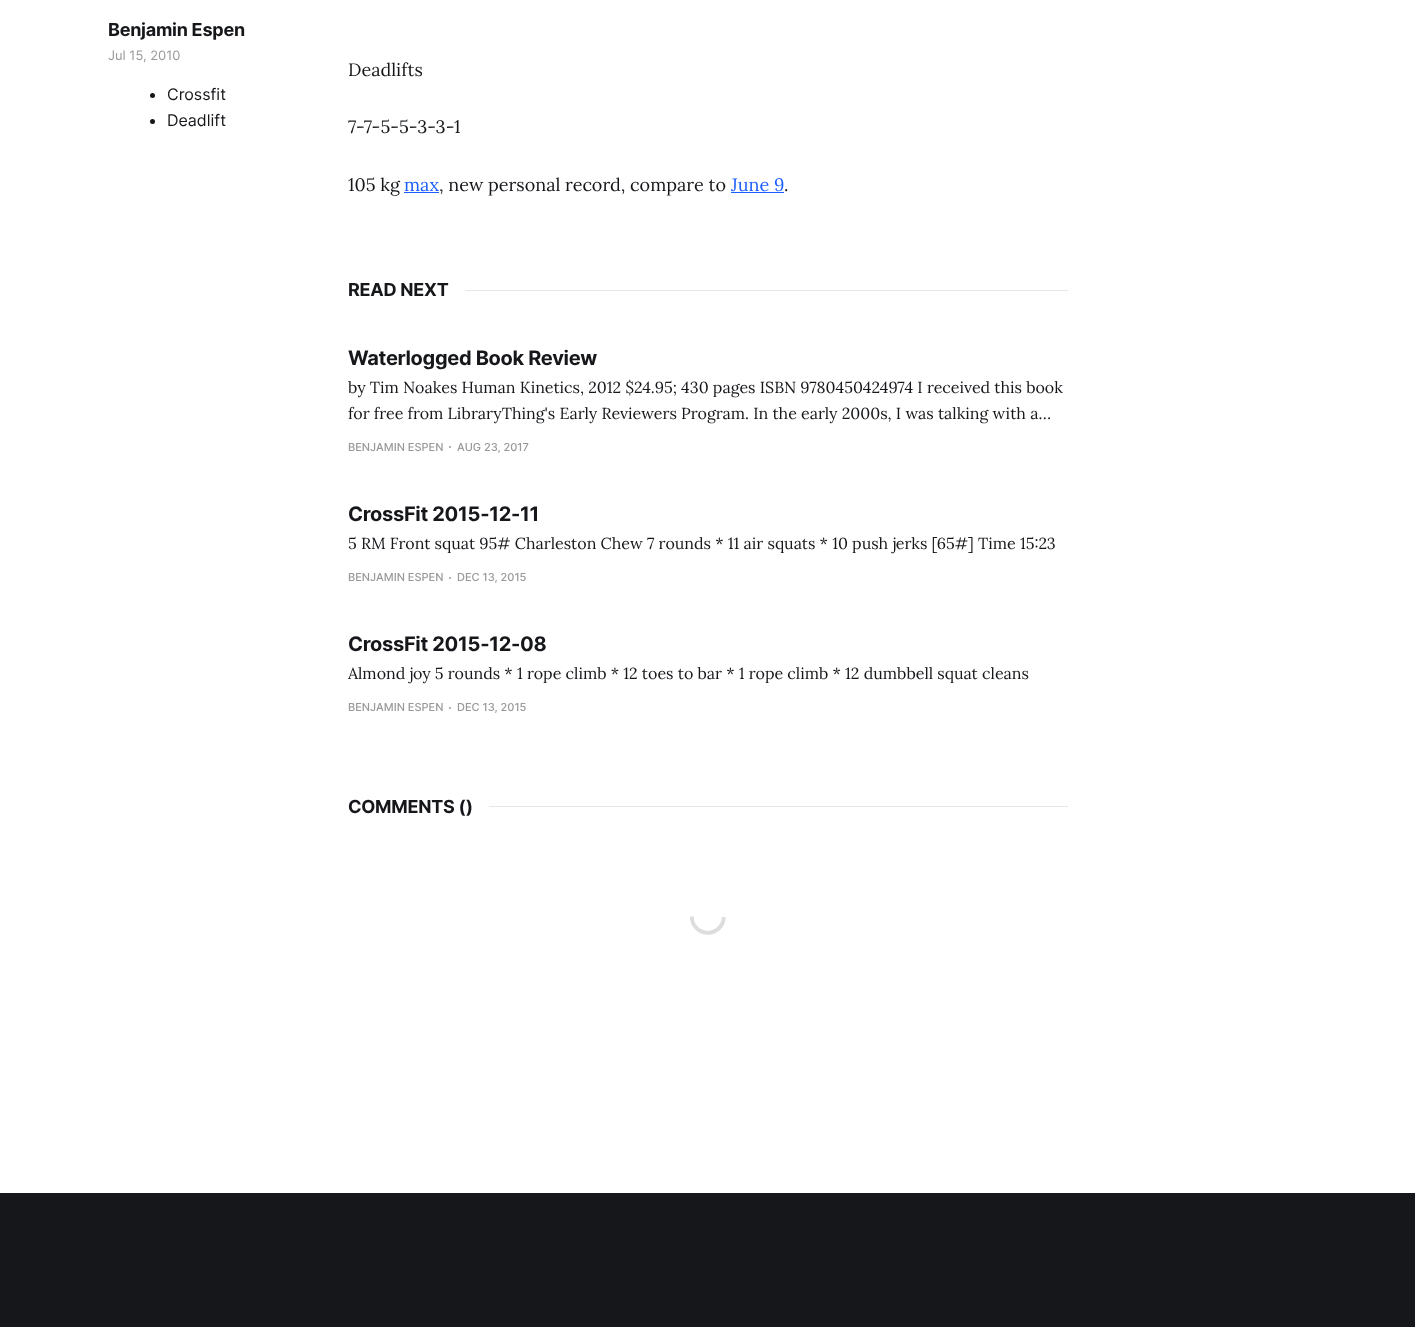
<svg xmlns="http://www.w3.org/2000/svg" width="1415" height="1327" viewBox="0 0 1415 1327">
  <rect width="100%" height="100%" fill="#ffffff"/>
  <text x="108" y="36" font-family="Inter" font-size="18" font-weight="bold" letter-spacing="-0.25" fill="#15171a">Benjamin Espen</text>
  <text x="108" y="60" font-family="Inter" font-size="13" fill="#999999">Jul 15, 2010</text>
  <circle cx="152.5" cy="95.5" r="2.5" fill="#15171a"/>
  <text x="167" y="100" font-family="Inter" font-size="16" fill="#15171a">Crossfit</text>
  <circle cx="152.5" cy="121.5" r="2.5" fill="#15171a"/>
  <text x="167" y="126" font-family="Inter" font-size="16" fill="#15171a">Deadlift</text>
  <text x="348" y="76" font-family="Lora" font-size="18" fill="#15171a">Deadlifts</text>
  <text x="348" y="133" font-family="Lora" font-size="18" fill="#15171a">7-7-5-5-3-3-1</text>
  <text x="348" y="191" font-family="Lora" font-size="18" fill="#15171a">105 kg</text>
  <text x="404" y="191" font-family="Lora" font-size="18" fill="#1a5eff">max</text>
  <rect x="404" y="192" width="35" height="1" fill="#1a5eff"/>
  <text x="439" y="191" font-family="Lora" font-size="18" fill="#15171a">, new personal record, compare to</text>
  <text x="731" y="191" font-family="Lora" font-size="18" fill="#1a5eff">June 9</text>
  <rect x="731" y="192" width="53" height="1" fill="#1a5eff"/>
  <text x="784" y="191" font-family="Lora" font-size="18" fill="#15171a">.</text>
  <text x="348" y="296" font-family="Inter" font-size="18" font-weight="bold" letter-spacing="-0.25" fill="#15171a">READ NEXT</text>
  <rect x="465" y="290" width="603" height="1" fill="#e6e6e6"/>
  <text x="348" y="365" font-family="Inter" font-size="20" font-weight="bold" letter-spacing="-0.3" fill="#15171a">Waterlogged Book Review</text>
  <text x="348" y="393" font-family="Lora" font-size="16" fill="#15171a">by Tim Noakes Human Kinetics, 2012 $24.95; 430 pages ISBN 9780450424974 I received this book</text>
  <text x="348" y="419" font-family="Lora" font-size="16" fill="#15171a">for free from LibraryThing's Early Reviewers Program. In the early 2000s, I was talking with a…</text>
  <text x="348" y="451" font-family="Inter" font-size="11" font-weight="500" fill="#999999">BENJAMIN ESPEN</text>
  <circle cx="450" cy="447" r="1" fill="#999999"/>
  <text x="457" y="451" font-family="Inter" font-size="11" font-weight="500" fill="#999999">AUG 23, 2017</text>
  <text x="348" y="521" font-family="Inter" font-size="20" font-weight="bold" letter-spacing="-0.3" fill="#15171a">CrossFit 2015-12-11</text>
  <text x="348" y="549" font-family="Lora" font-size="16" fill="#15171a">5 RM Front squat 95# Charleston Chew 7 rounds * 11 air squats * 10 push jerks [65#] Time 15:23</text>
  <text x="348" y="581" font-family="Inter" font-size="11" font-weight="500" fill="#999999">BENJAMIN ESPEN</text>
  <circle cx="450" cy="578" r="1" fill="#999999"/>
  <text x="457" y="581" font-family="Inter" font-size="11" font-weight="500" fill="#999999">DEC 13, 2015</text>
  <text x="348" y="651" font-family="Inter" font-size="20" font-weight="bold" letter-spacing="-0.3" fill="#15171a">CrossFit 2015-12-08</text>
  <text x="348" y="679" font-family="Lora" font-size="16" fill="#15171a">Almond joy 5 rounds * 1 rope climb * 12 toes to bar * 1 rope climb * 12 dumbbell squat cleans</text>
  <text x="348" y="711" font-family="Inter" font-size="11" font-weight="500" fill="#999999">BENJAMIN ESPEN</text>
  <circle cx="450" cy="708" r="1" fill="#999999"/>
  <text x="457" y="711" font-family="Inter" font-size="11" font-weight="500" fill="#999999">DEC 13, 2015</text>
  <text x="348" y="813" font-family="Inter" font-size="18" font-weight="bold" letter-spacing="-0.25" fill="#15171a">COMMENTS ()</text>
  <rect x="489" y="806" width="579" height="1" fill="#e6e6e6"/>
  <image x="690" y="916" width="36" height="19" href="img1.png"/>
  <rect x="0" y="1193" width="1415" height="134" fill="#15171a"/>
</svg>
